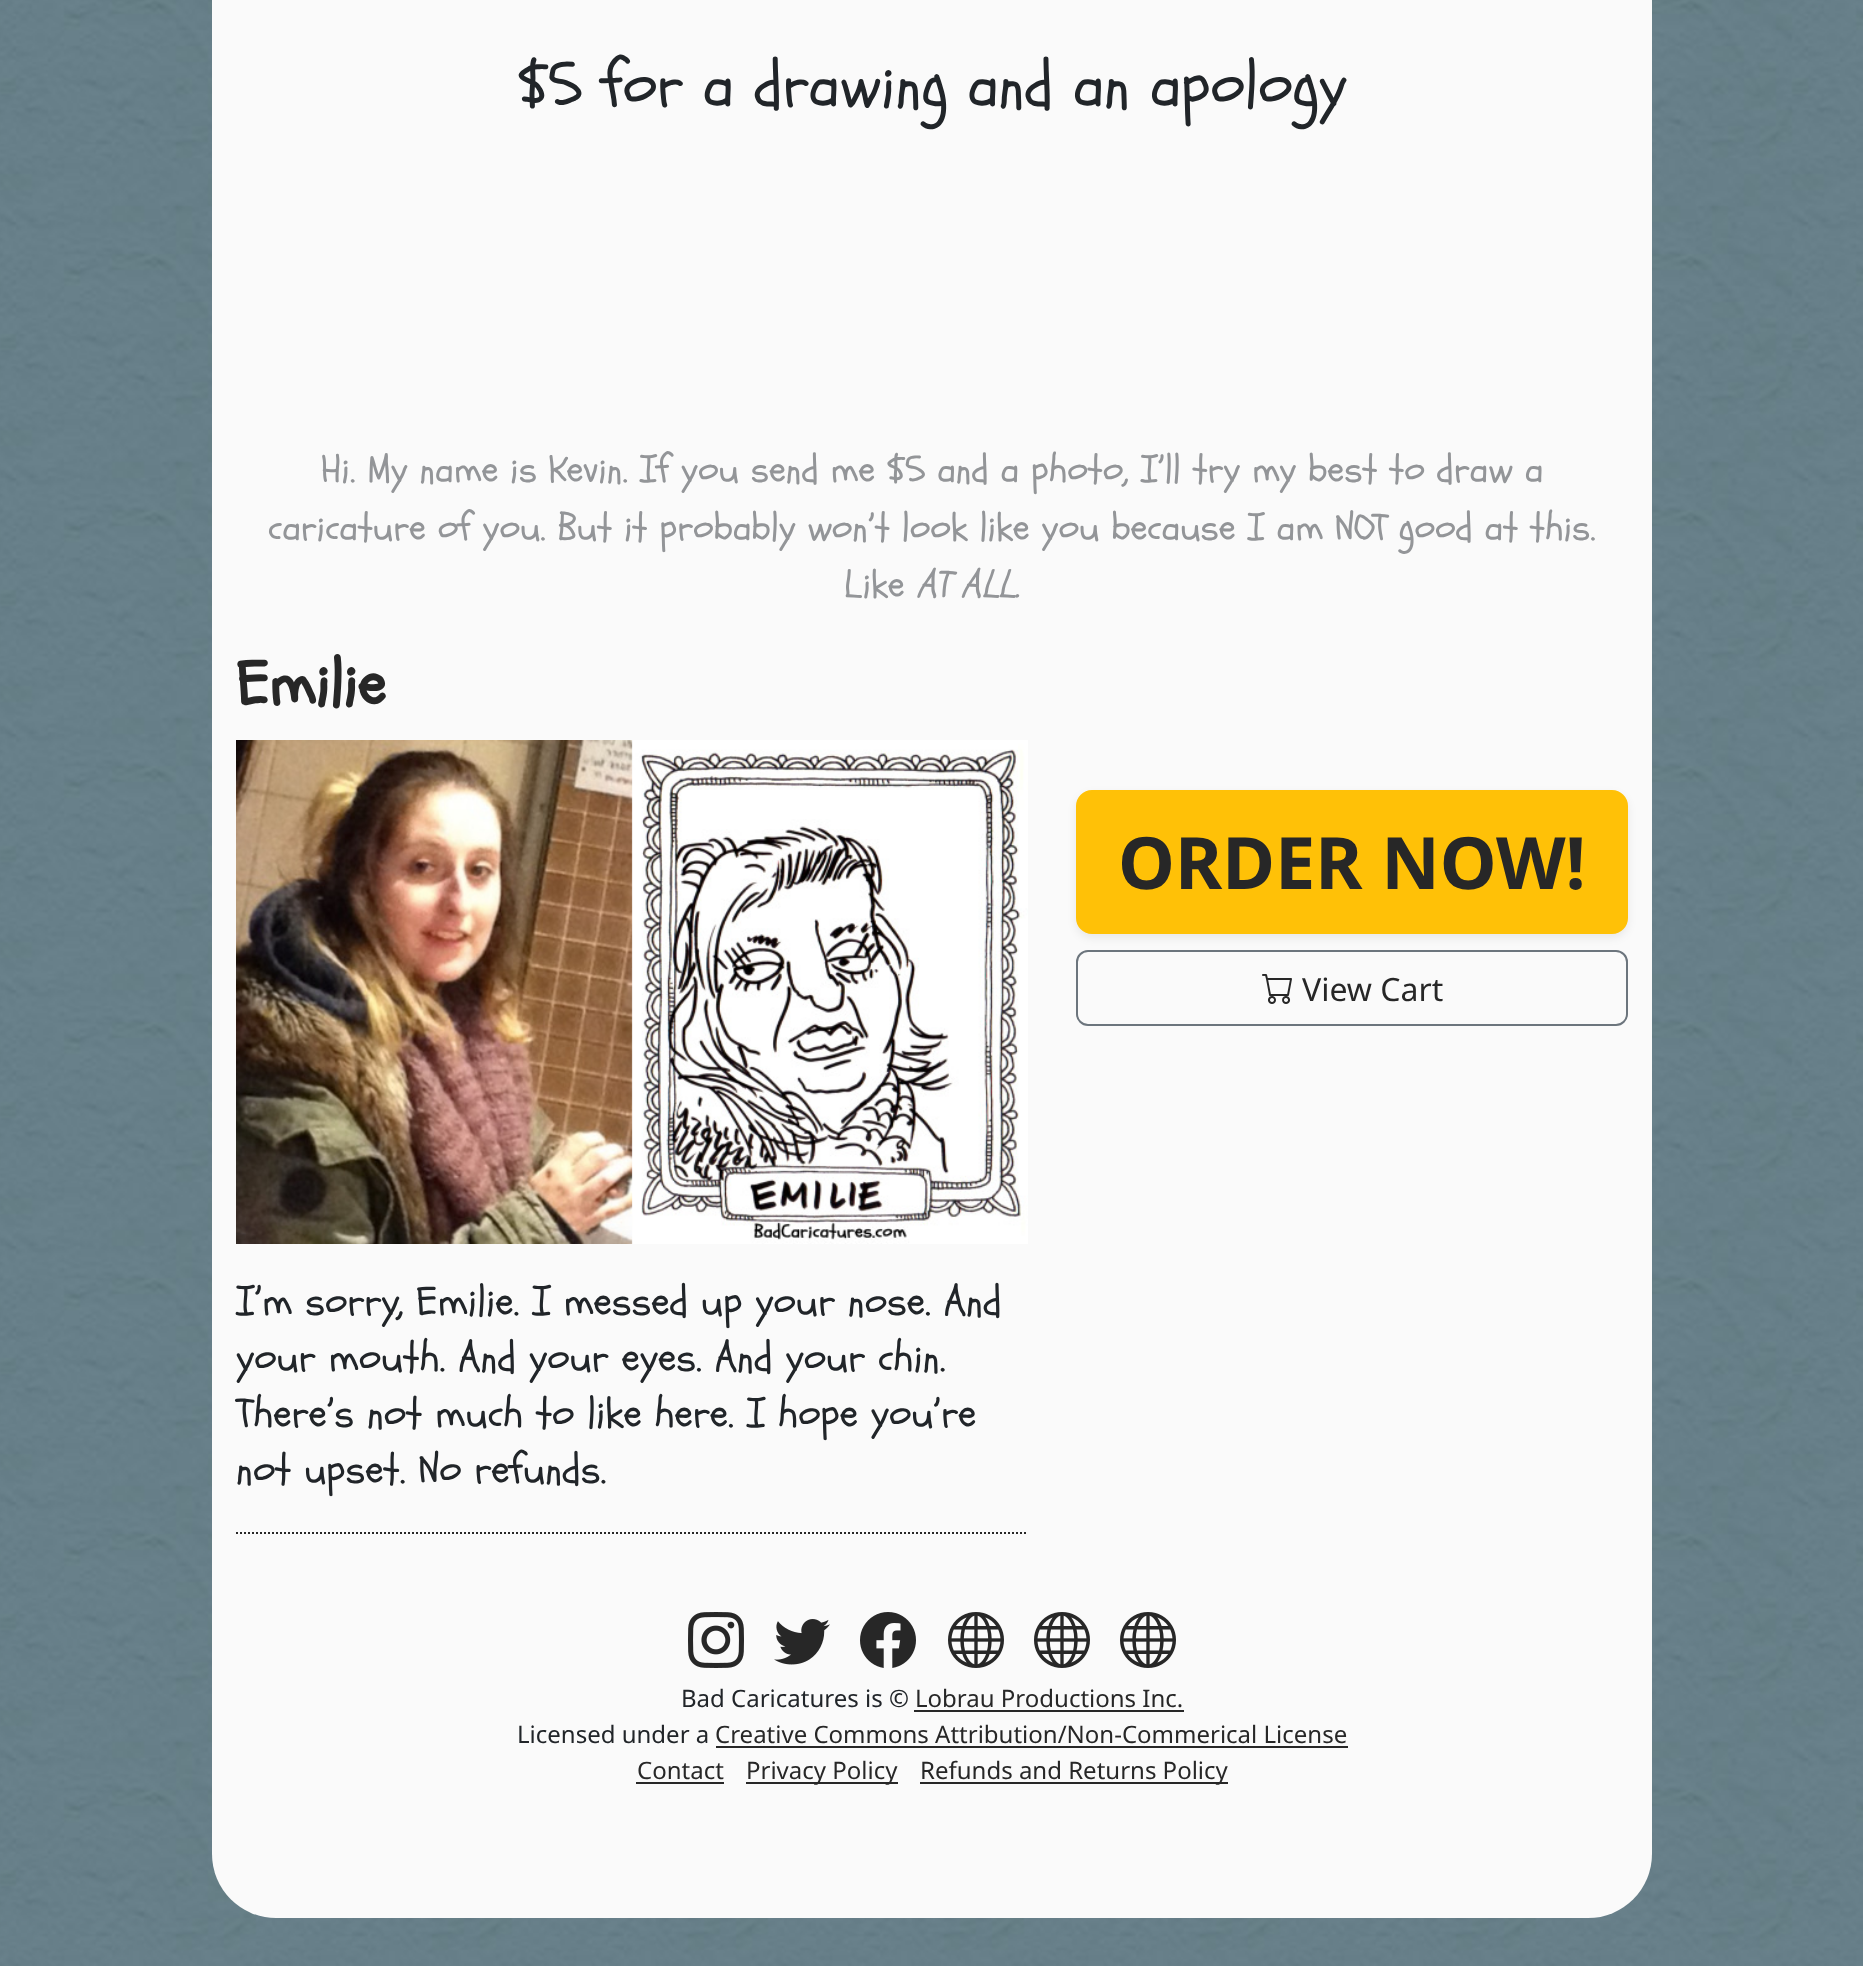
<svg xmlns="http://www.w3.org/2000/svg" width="1863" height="1966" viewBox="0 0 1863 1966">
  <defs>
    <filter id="blur1" x="-50%" y="-200%" width="200%" height="500%"><feGaussianBlur stdDeviation="4"/></filter>
  </defs>
  <rect width="100%" height="100%" fill="#ffffff"/>
  <image x="0" y="0" width="1863" height="1966" href="img1.png"/>
  <rect x="212" y="-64" width="1440" height="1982" rx="64" fill="#fafafa"/>
  <text x="518" y="106" font-family="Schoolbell" font-size="64" fill="#212529">$5 for a drawing and an apology</text>
  <text x="321" y="482" font-family="Schoolbell" font-size="38.4" fill="#939598">Hi. My name is Kevin. If you send me $5 and a photo, I’ll try my best to draw a</text>
  <text x="268" y="540" font-family="Schoolbell" font-size="38.4" fill="#939598">caricature of you. But it probably won’t look like you because I am NOT good at this.</text>
  <text x="844" y="597" font-family="Schoolbell" font-size="38.4" fill="#939598">Like</text>
  <text x="916" y="597" font-family="Schoolbell" font-size="38.4" font-style="italic" fill="#939598">AT ALL.</text>
  <path d="M236 1533H1028" fill="none" stroke="#272727" stroke-width="2" stroke-dasharray="2 2"/>
  <text x="236" y="705" font-family="Schoolbell" font-size="64" font-weight="bold" fill="#272727">Emilie</text>
  <image x="236" y="740" width="792" height="504" href="img2.png"/>
  <text x="236" y="1315" font-family="Schoolbell" font-size="41.6" fill="#212529">I’m sorry, Emilie. I messed up your nose. And</text>
  <text x="236" y="1371" font-family="Schoolbell" font-size="41.6" fill="#212529">your mouth. And your eyes. And your chin.</text>
  <text x="236" y="1427" font-family="Schoolbell" font-size="41.6" fill="#212529">There’s not much to like here. I hope you’re</text>
  <text x="236" y="1483" font-family="Schoolbell" font-size="41.6" fill="#212529">not upset. No refunds.</text>
  <rect x="1076" y="794" width="552" height="144" rx="16" fill="#000000" fill-opacity="0.07" filter="url(#blur1)"/>
  <rect x="1077" y="791" width="550" height="142" rx="15" fill="#ffc107" stroke="#ffc107" stroke-width="2"/>
  <text x="1118" y="889" font-family="Noto Sans" font-size="72" font-weight="bold" fill="#272727">ORDER NOW!</text>
  <rect x="1077" y="951" width="550" height="74" rx="11" fill="none" stroke="#6c757d" stroke-width="2"/>
  <image x="1262" y="974" width="30" height="30" href="img3.png"/>
  <text x="1302" y="1001" font-family="Noto Sans" font-size="32" fill="#272727">View Cart</text>
  <image x="688" y="1612" width="56" height="56" href="img4.png"/>
  <image x="774" y="1619" width="56" height="46" href="img5.png"/>
  <image x="860" y="1612" width="56" height="56" href="img6.png"/>
  <image x="948" y="1612" width="56" height="56" href="img7.png"/>
  <image x="1034" y="1612" width="56" height="56" href="img7.png"/>
  <image x="1120" y="1612" width="56" height="56" href="img7.png"/>
  <text x="681" y="1707" font-family="Noto Sans" font-size="24" fill="#212529">Bad Caricatures is ©</text>
  <text x="915" y="1707" font-family="Noto Sans" font-size="24" fill="#272727">Lobrau Productions Inc.</text>
  <rect x="914" y="1710" width="270" height="2" fill="#272727"/>
  <text x="517" y="1743" font-family="Noto Sans" font-size="24" fill="#212529">Licensed under a</text>
  <text x="715" y="1743" font-family="Noto Sans" font-size="24" fill="#272727">Creative Commons Attribution/Non-Commerical License</text>
  <rect x="716" y="1746" width="632" height="2" fill="#272727"/>
  <text x="637" y="1779" font-family="Noto Sans" font-size="24" fill="#272727">Contact</text>
  <rect x="636" y="1782" width="88" height="2" fill="#272727"/>
  <rect x="746" y="1782" width="152" height="2" fill="#272727"/>
  <text x="746" y="1779" font-family="Noto Sans" font-size="24" fill="#272727">Privacy Policy</text>
  <rect x="920" y="1782" width="308" height="2" fill="#272727"/>
  <text x="920" y="1779" font-family="Noto Sans" font-size="24" fill="#272727">Refunds and Returns Policy</text>
</svg>
